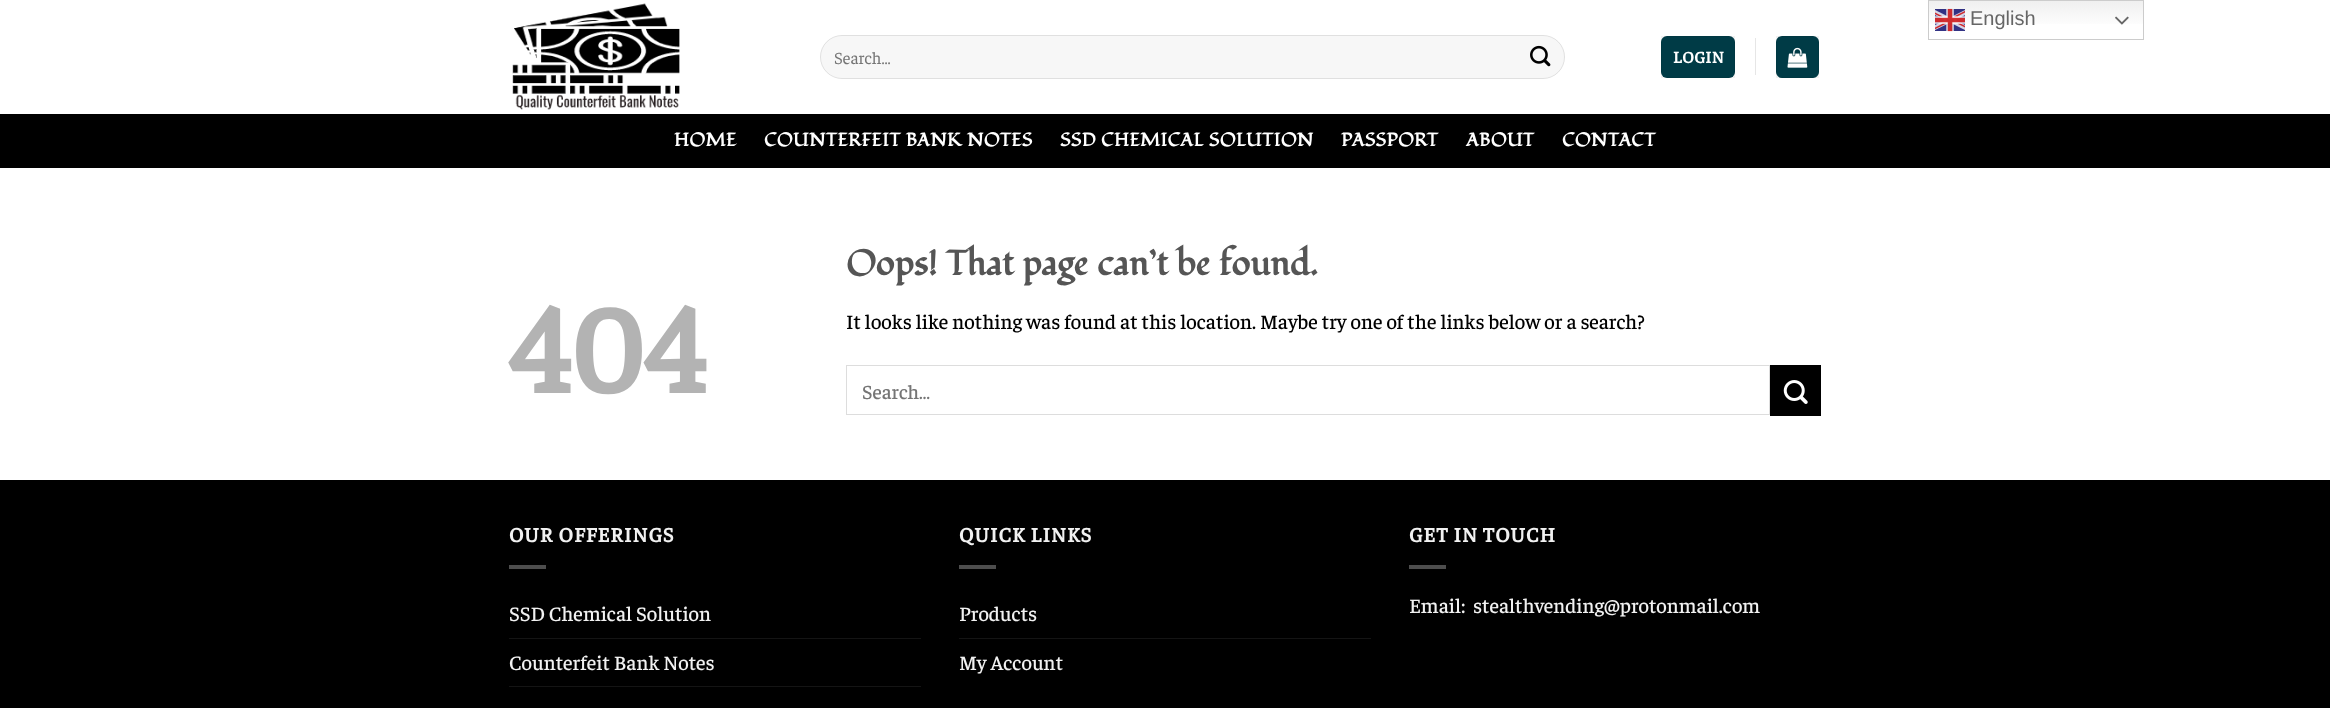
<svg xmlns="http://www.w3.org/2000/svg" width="2330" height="708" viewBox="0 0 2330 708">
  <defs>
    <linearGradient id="g1" gradientUnits="userSpaceOnUse" x1="2036" y1="0" x2="2036" y2="40"><stop offset="0" stop-color="#efefef"/><stop offset="0.7" stop-color="#ffffff"/></linearGradient>
  </defs>
  <rect width="100%" height="100%" fill="#ffffff"/>
  <rect x="1929" y="1" width="214" height="23" fill="url(#g1)"/>
  <rect x="1928.5" y="0.5" width="215" height="39" fill="none" stroke="#cccccc"/>
  <image x="1935" y="8" width="30" height="24" href="img1.png"/>
  <text x="1970" y="25" font-family="Liberation Sans" font-size="20" fill="#666666">English</text>
  <image x="2115" y="16" width="14" height="9" href="img2.png"/>
  <image x="512" y="3" width="168" height="107" href="img3.png"/>
  <rect x="820" y="35" width="745" height="44" rx="22" fill="#f7f7f7"/>
  <rect x="820.5" y="35.5" width="744" height="43" rx="21.5" fill="none" stroke="#000000" stroke-opacity="0.09"/>
  <text x="834" y="64" font-family="Faustina" font-size="17" fill="#757575">Search…</text>
  <image x="1530" y="45" width="21" height="22" href="img4.png"/>
  <rect x="1661" y="36" width="74" height="42" rx="6" fill="#003b46"/>
  <rect x="1661.5" y="36.5" width="73" height="41" fill="none" stroke="#000000" stroke-opacity="0.05"/>
  <text x="1673" y="63" font-family="Faustina" font-size="16.5" font-weight="bold" letter-spacing="0.5" fill="#ffffff">LOGIN</text>
  <rect x="1755" y="38" width="1" height="37" fill="#e6e6e6"/>
  <rect x="1776" y="36" width="43" height="42" rx="6" fill="#003b46"/>
  <rect x="1776.5" y="36.5" width="42" height="41" fill="none" stroke="#000000" stroke-opacity="0.05"/>
  <image x="1787" y="47" width="21" height="21" href="img5.png"/>
  <rect x="0" y="114" width="2330" height="54" fill="#000000"/>
  <text x="674" y="146" font-family="Fondamento" font-size="18.5" font-weight="bold" letter-spacing="0.4" fill="#ffffff">HOME</text>
  <text x="764" y="146" font-family="Fondamento" font-size="18.5" font-weight="bold" letter-spacing="0.4" fill="#ffffff">COUNTERFEIT BANK NOTES</text>
  <text x="1060" y="146" font-family="Fondamento" font-size="18.5" font-weight="bold" letter-spacing="0.4" fill="#ffffff">SSD CHEMICAL SOLUTION</text>
  <text x="1341" y="146" font-family="Fondamento" font-size="18.5" font-weight="bold" letter-spacing="0.4" fill="#ffffff">PASSPORT</text>
  <text x="1466" y="146" font-family="Fondamento" font-size="18.5" font-weight="bold" letter-spacing="0.4" fill="#ffffff">ABOUT</text>
  <text x="1562" y="146" font-family="Fondamento" font-size="18.5" font-weight="bold" letter-spacing="0.4" fill="#ffffff">CONTACT</text>
  <text x="509" y="393" font-family="Faustina" font-size="124" font-weight="bold" fill="#b3b3b3">404</text>
  <text x="846" y="275" font-family="Fondamento" font-size="35" font-weight="bold" fill="#555555">Oops! That page can’t be found.</text>
  <text x="846" y="329" font-family="Faustina" font-size="20.6" font-weight="500" fill="#000000">It looks like nothing was found at this location. Maybe try one of the links below or a search?</text>
  <rect x="846.5" y="365.5" width="923" height="49" fill="none" stroke="#dddddd"/>
  <text x="862" y="399" font-family="Faustina" font-size="20" font-weight="500" fill="#757575">Search…</text>
  <rect x="1770" y="365" width="51" height="51" fill="#000000"/>
  <image x="1783" y="380" width="25" height="24" href="img6.png"/>
  <rect x="0" y="480" width="2330" height="228" fill="#000000"/>
  <text x="509" y="542" font-family="Faustina" font-size="20.6" font-weight="bold" letter-spacing="1" fill="#f1f1f1">OUR OFFERINGS</text>
  <rect x="509" y="565" width="37" height="4" fill="#4d4d4d"/>
  <text x="509" y="621" font-family="Faustina" font-size="20.6" font-weight="500" fill="#f1f1f1">SSD Chemical Solution</text>
  <rect x="509" y="638" width="412" height="1" fill="#141414"/>
  <text x="509" y="670" font-family="Faustina" font-size="20.6" font-weight="500" fill="#f1f1f1">Counterfeit Bank Notes</text>
  <rect x="509" y="686" width="412" height="1" fill="#141414"/>
  <text x="959" y="542" font-family="Faustina" font-size="20.6" font-weight="bold" letter-spacing="1" fill="#f1f1f1">QUICK LINKS</text>
  <rect x="959" y="565" width="37" height="4" fill="#4d4d4d"/>
  <text x="959" y="621" font-family="Faustina" font-size="20.6" font-weight="500" fill="#f1f1f1">Products</text>
  <rect x="959" y="638" width="412" height="1" fill="#141414"/>
  <text x="959" y="670" font-family="Faustina" font-size="20.6" font-weight="500" fill="#f1f1f1">My Account</text>
  <text x="1409" y="542" font-family="Faustina" font-size="20.6" font-weight="bold" letter-spacing="1" fill="#f1f1f1">GET IN TOUCH</text>
  <rect x="1409" y="565" width="37" height="4" fill="#4d4d4d"/>
  <text x="1409" y="613" font-family="Faustina" font-size="20.6" font-weight="500" fill="#f1f1f1">Email:</text>
  <text x="1473" y="613" font-family="Faustina" font-size="20.6" font-weight="500" fill="#f1f1f1">stealthvending@protonmail.com</text>
</svg>
